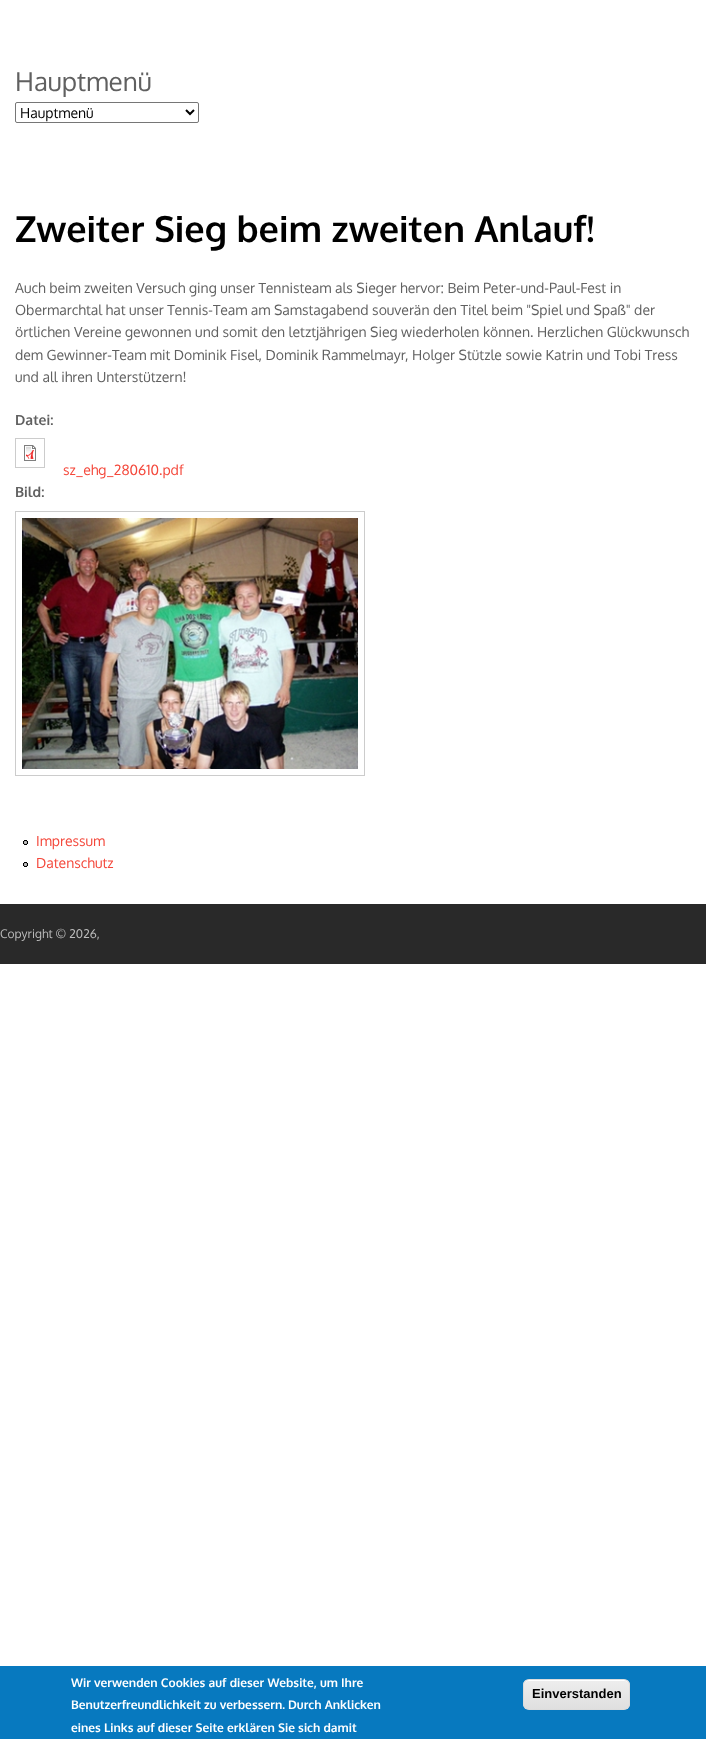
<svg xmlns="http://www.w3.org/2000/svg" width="706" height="1739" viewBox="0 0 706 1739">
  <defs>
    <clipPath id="clip1"><rect x="523" y="1679" width="107" height="31" rx="6"/></clipPath>
    <linearGradient id="g1" gradientUnits="userSpaceOnUse" x1="577" y1="1680" x2="577" y2="1709"><stop offset="0.05" stop-color="#ededed"/><stop offset="1" stop-color="#dfdfdf"/></linearGradient>
  </defs>
  <rect width="100%" height="100%" fill="#ffffff"/>
  <text x="15" y="91" font-family="Oxygen" font-size="26" fill="#606060">Hauptmenü</text>
  <rect x="15.5" y="102.5" width="183" height="20" rx="1.5" fill="none" stroke="#767676"/>
  <path d="M186 110L190 114L194 110" fill="none" stroke="#000000" stroke-width="2"/>
  <text x="20" y="118" font-family="Oxygen" font-size="14" fill="#000000">Hauptmenü</text>
  <text x="15" y="242" font-family="Oxygen" font-size="36" font-weight="bold" fill="#000000">Zweiter Sieg beim zweiten Anlauf!</text>
  <text x="15" y="293" font-family="Oxygen" font-size="14" fill="#606060">Auch beim zweiten Versuch ging unser Tennisteam als Sieger hervor: Beim Peter-und-Paul-Fest in</text>
  <text x="15" y="315" font-family="Oxygen" font-size="14" fill="#606060">Obermarchtal hat unser Tennis-Team am Samstagabend souverän den Titel beim "Spiel und Spaß" der</text>
  <text x="15" y="337" font-family="Oxygen" font-size="14" fill="#606060">örtlichen Vereine gewonnen und somit den letztjährigen Sieg wiederholen können. Herzlichen Glückwunsch</text>
  <text x="15" y="360" font-family="Oxygen" font-size="14" fill="#606060">dem Gewinner-Team mit Dominik Fisel, Dominik Rammelmayr, Holger Stützle sowie Katrin und Tobi Tress</text>
  <text x="15" y="382" font-family="Oxygen" font-size="14" fill="#606060">und all ihren Unterstützern!</text>
  <text x="15" y="425" font-family="Oxygen" font-size="14" font-weight="bold" fill="#606060">Datei:</text>
  <rect x="15.5" y="438.5" width="29" height="29" fill="none" stroke="#cccccc"/>
  <image x="24" y="445" width="12" height="16" href="img1.png"/>
  <text x="63" y="475" font-family="Oxygen" font-size="14" fill="#f4473a">sz_ehg_280610.pdf</text>
  <text x="15" y="497" font-family="Oxygen" font-size="14" font-weight="bold" fill="#606060">Bild:</text>
  <rect x="15.5" y="511.5" width="349" height="264" fill="none" stroke="#cccccc"/>
  <image x="22" y="518" width="336" height="251" href="img2.png"/>
  <image x="23" y="840" width="5" height="5" href="img3.png"/>
  <text x="36" y="846" font-family="Oxygen" font-size="14" fill="#f4473a">Impressum</text>
  <image x="23" y="862" width="5" height="5" href="img3.png"/>
  <text x="36" y="868" font-family="Oxygen" font-size="14" fill="#f4473a">Datenschutz</text>
  <rect x="0" y="904" width="706" height="60" fill="#292929"/>
  <text x="0" y="938" font-family="Oxygen" font-size="12" fill="#bbbbbb">Copyright © 2026,</text>
  <rect x="0" y="1666" width="706" height="73" fill="#0779bf"/>
  <text x="71" y="1687" font-family="Oxygen" font-size="12" font-weight="bold" fill="#ffffff">Wir verwenden Cookies auf dieser Website, um Ihre</text>
  <text x="71" y="1709" font-family="Oxygen" font-size="12" font-weight="bold" fill="#ffffff">Benutzerfreundlichkeit zu verbessern.</text>
  <text x="288" y="1709" font-family="Oxygen" font-size="12" font-weight="bold" fill="#ffffff">Durch Anklicken</text>
  <text x="71" y="1732" font-family="Oxygen" font-size="12" font-weight="bold" fill="#ffffff">eines Links auf dieser Seite erklären Sie sich damit</text>
  <g clip-path="url(#clip1)">
    <rect x="523" y="1680" width="107" height="29" fill="url(#g1)"/>
  </g>
  <path d="M529 1681H624C627 1681 629 1683 629 1686C629 1676 613 1680 608 1680H545C540 1680 524 1676 524 1686C524 1683 526 1681 529 1681Z" fill="#ffffff"/>
  <rect x="523.5" y="1679.5" width="106" height="30" rx="5.5" fill="none" stroke="#dcdcdc"/>
  <text x="532" y="1698" font-family="Liberation Sans" font-size="13" font-weight="bold" fill="#000000">Einverstanden</text>
</svg>
